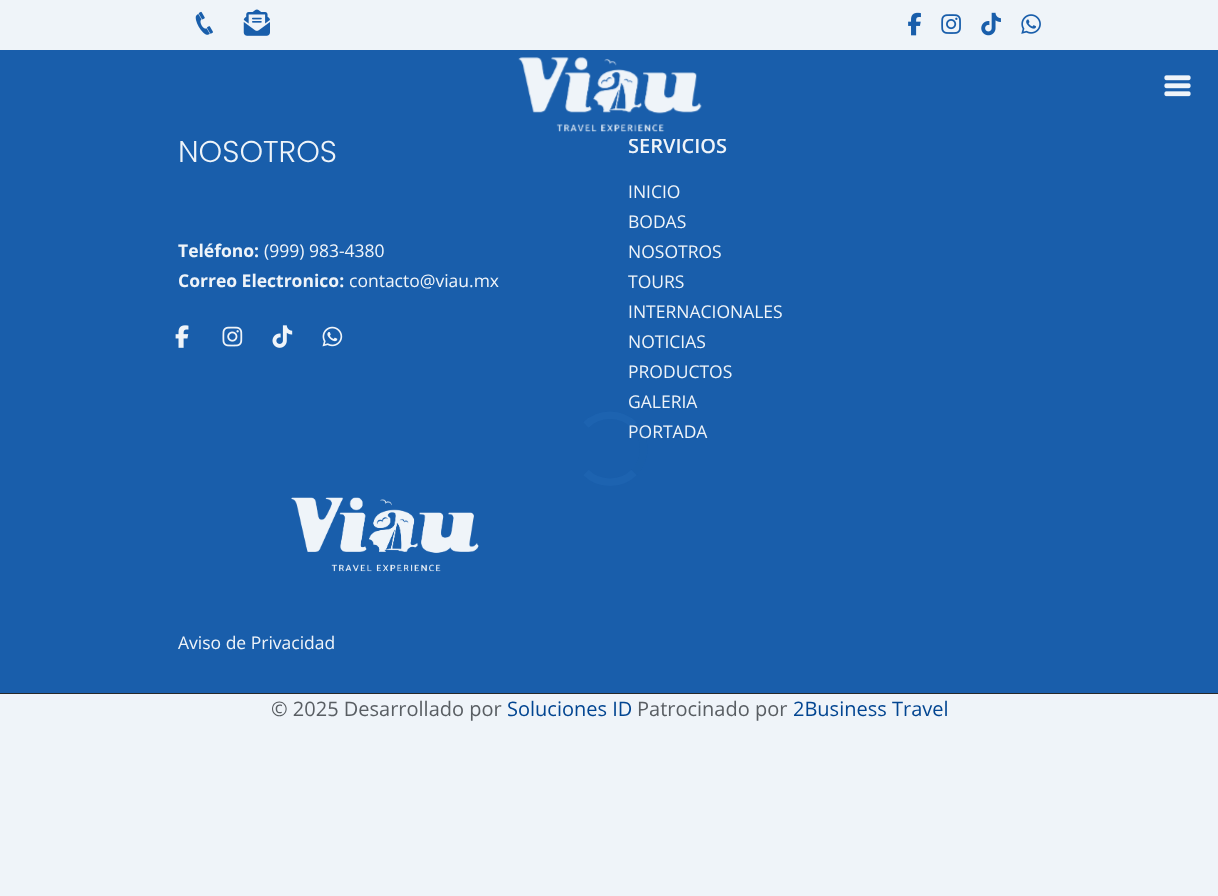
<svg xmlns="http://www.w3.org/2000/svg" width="1218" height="896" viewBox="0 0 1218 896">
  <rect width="100%" height="100%" fill="#eff4f9"/>
  <image x="195" y="11" width="18" height="24" href="img1.png"/>
  <image x="243" y="9" width="27" height="27" href="img2.png"/>
  <image x="908" y="12" width="13" height="24" href="img3.png"/>
  <image x="941" y="14" width="20" height="20" href="img4.png"/>
  <image x="981" y="12" width="20" height="24" href="img5.png"/>
  <image x="1021" y="14" width="20" height="20" href="img6.png"/>
  <rect x="0" y="139" width="1218" height="554" fill="#195eab"/>
  <text x="628" y="153" font-family="Open Sans" font-size="20" font-weight="600" fill="#eff4f9">SERVICIOS</text>
  <rect x="0" y="50" width="1218" height="89" fill="#195eab"/>
  <image x="518" y="57" width="184" height="75" href="img7.png"/>
  <image x="1164" y="75" width="27" height="22" href="img8.png"/>
  <rect x="0" y="693" width="1218" height="1" fill="#272929"/>
  <text x="178" y="162" font-family="Poppins" font-size="30" font-weight="300" fill="#eff4f9">NOSOTROS</text>
  <text x="178" y="257" font-family="Open Sans" font-size="17.5" font-weight="bold" fill="#eff4f9">Teléfono:</text>
  <text x="264" y="257" font-family="Open Sans" font-size="17.5" fill="#eff4f9">(999) 983-4380</text>
  <text x="178" y="287" font-family="Open Sans" font-size="17.5" font-weight="bold" fill="#eff4f9">Correo Electronico:</text>
  <text x="349" y="287" font-family="Open Sans" font-size="17.5" fill="#eff4f9">contacto@viau.mx</text>
  <image x="175" y="325" width="14" height="23" href="img9.png"/>
  <image x="222" y="326" width="21" height="21" href="img10.png"/>
  <image x="272" y="325" width="21" height="23" href="img11.png"/>
  <image x="322" y="326" width="21" height="21" href="img12.png"/>
  <text x="628" y="198" font-family="Open Sans" font-size="17.5" fill="#eff4f9">INICIO</text>
  <text x="628" y="228" font-family="Open Sans" font-size="17.5" fill="#eff4f9">BODAS</text>
  <text x="628" y="258" font-family="Open Sans" font-size="17.5" fill="#eff4f9">NOSOTROS</text>
  <text x="628" y="288" font-family="Open Sans" font-size="17.5" fill="#eff4f9">TOURS</text>
  <text x="628" y="318" font-family="Open Sans" font-size="17.5" fill="#eff4f9">INTERNACIONALES</text>
  <text x="628" y="348" font-family="Open Sans" font-size="17.5" fill="#eff4f9">NOTICIAS</text>
  <text x="628" y="378" font-family="Open Sans" font-size="17.5" fill="#eff4f9">PRODUCTOS</text>
  <text x="628" y="408" font-family="Open Sans" font-size="17.5" fill="#eff4f9">GALERIA</text>
  <text x="628" y="438" font-family="Open Sans" font-size="17.5" fill="#eff4f9">PORTADA</text>
  <image x="291" y="497" width="188" height="75" href="img13.png"/>
  <text x="178" y="649" font-family="Open Sans" font-size="17.5" fill="#eff4f9">Aviso de Privacidad</text>
  <path d="M586 425C599 412 621 412 634 425" fill="none" stroke="#57a5ff" stroke-opacity="0.07" stroke-width="7.5"/>
  <path d="M634 425C647 438 647 459.5 634 472.5" fill="none" stroke="#195eab" stroke-opacity="0.07" stroke-width="7.5"/>
  <path d="M634 472.5C621 485.5 599 485.5 586 472.5" fill="none" stroke="#1d63b0" stroke-width="7.5"/>
  <text x="271" y="716" font-family="Open Sans" font-size="20" fill="#595e63">© 2025 Desarrollado por</text>
  <text x="507" y="716" font-family="Open Sans" font-size="20" fill="#024591">Soluciones ID</text>
  <text x="637" y="716" font-family="Open Sans" font-size="20" fill="#595e63">Patrocinado por</text>
  <text x="793" y="716" font-family="Open Sans" font-size="20" fill="#024591">2Business Travel</text>
</svg>
